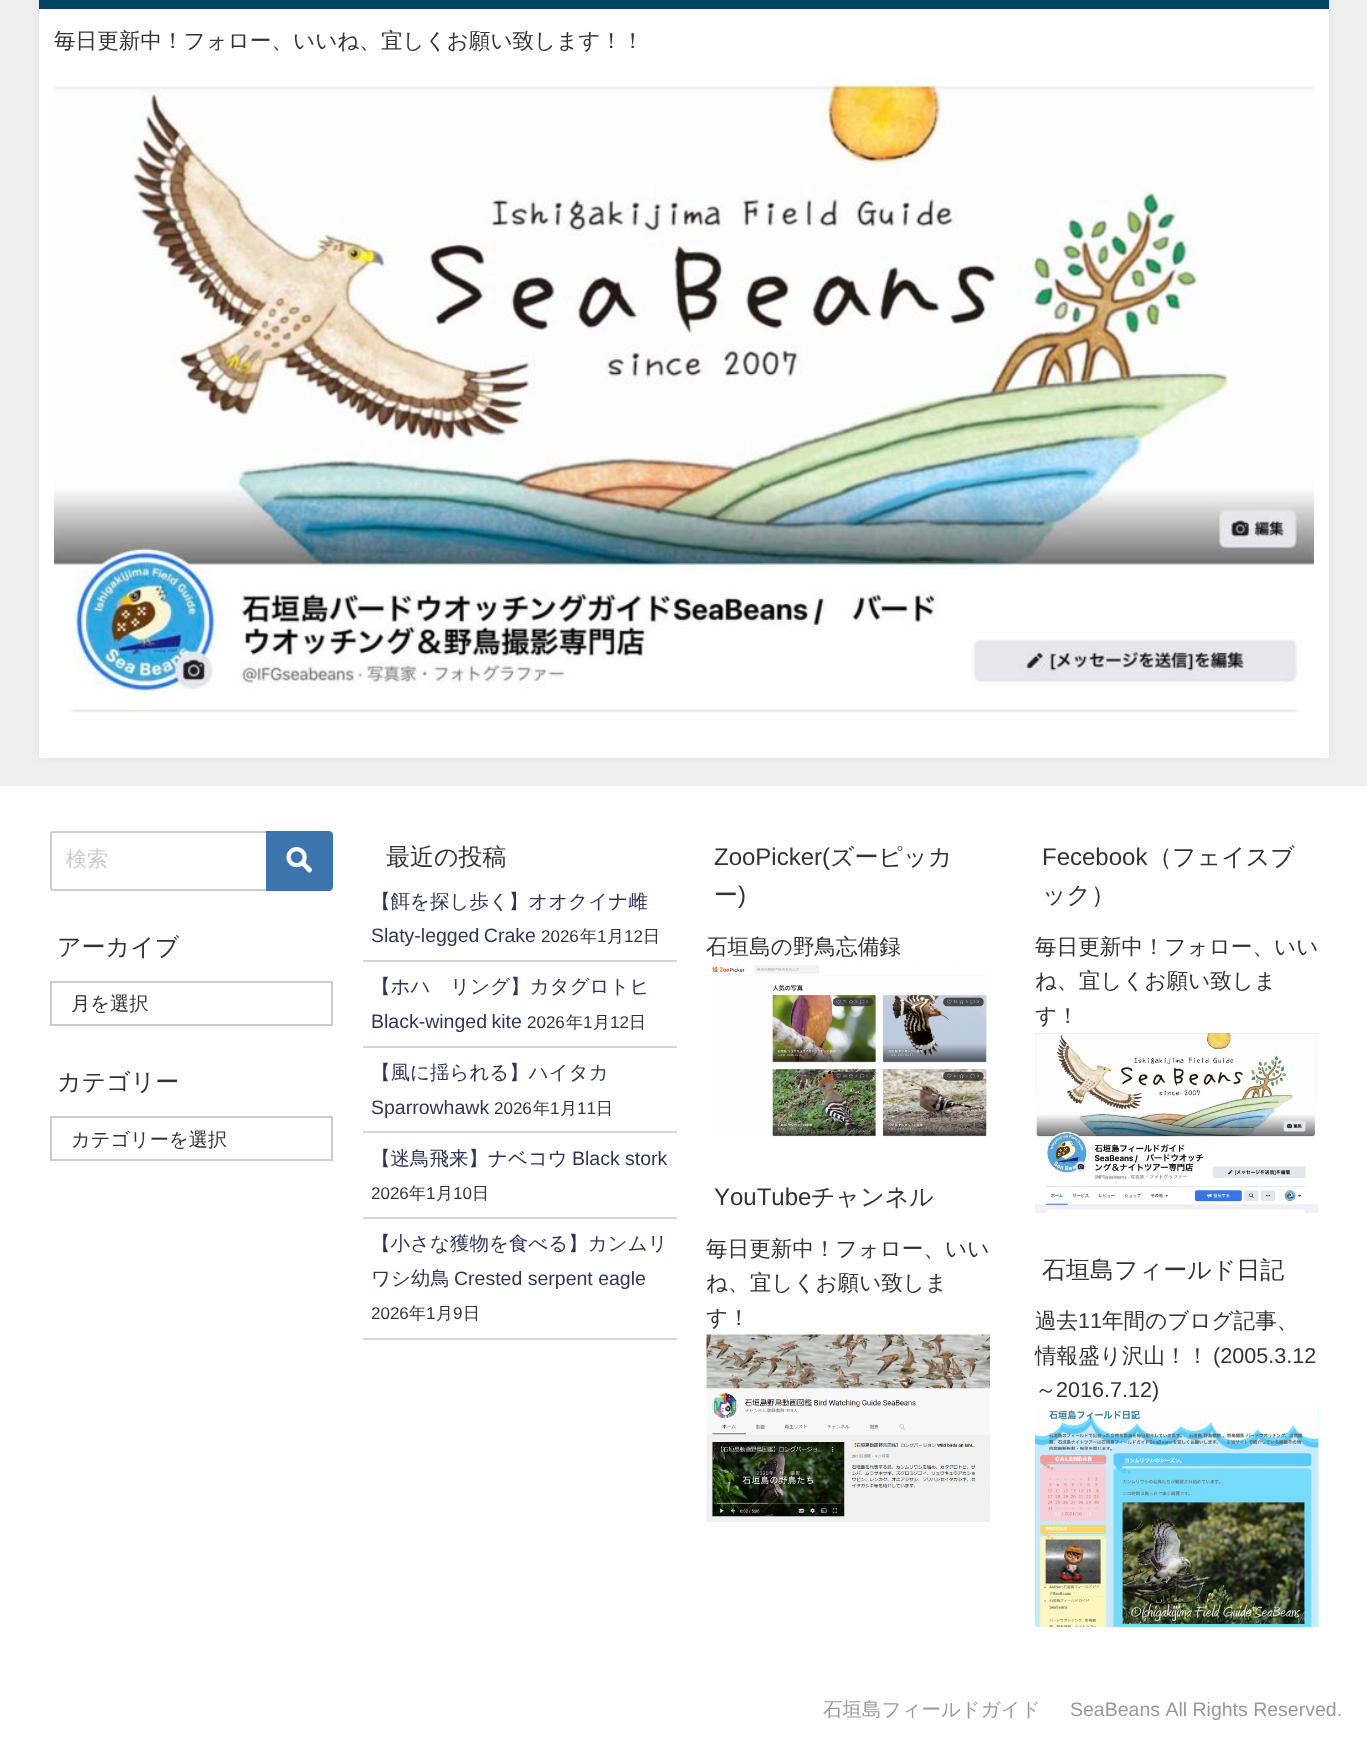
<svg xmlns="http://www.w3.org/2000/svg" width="1367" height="1749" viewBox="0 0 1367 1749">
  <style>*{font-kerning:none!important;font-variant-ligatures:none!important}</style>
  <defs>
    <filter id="blur1" x="-50%" y="-200%" width="200%" height="500%"><feGaussianBlur stdDeviation="4"/></filter>
  </defs>
  <rect width="100%" height="100%" fill="#efefef"/>
  <rect x="39" y="-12" width="1290" height="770" fill="#969696" fill-opacity="0.2" filter="url(#blur1)"/>
  <rect x="39" y="9" width="1290" height="749" fill="#ffffff"/>
  <rect x="39" y="0" width="1290" height="9" fill="#004363"/>
  <text x="54" y="48" font-family="WenQuanYi Zen Hei" font-size="21.6" font-weight="500" fill="#333333">毎日更新中！フォロー、いいね、宜しくお願い致します！！</text>
  <image x="54" y="79" width="1260" height="634" href="img1.png"/>
  <rect x="0" y="786" width="1367" height="963" fill="#ffffff"/>
  <rect x="51" y="832" width="281" height="58" rx="2" fill="none" stroke="#cccccc" stroke-width="2"/>
  <text x="66" y="866" font-family="WenQuanYi Zen Hei" font-size="21" font-weight="500" fill="#cccccc">検索</text>
  <path d="M266 831H328C331 831 333 833 333 836V886C333 889 331 891 328 891H266Z" fill="#3c74ad"/>
  <image x="286" y="847" width="26" height="26" href="img2.png"/>
  <text x="57" y="955" font-family="WenQuanYi Zen Hei" font-size="24" font-weight="500" fill="#333333">アーカイブ</text>
  <rect x="51" y="982" width="281" height="43" fill="none" stroke="#cccccc" stroke-width="2"/>
  <text x="71" y="1010" font-family="WenQuanYi Zen Hei" font-size="19.25" font-weight="500" fill="#333333">月を選択</text>
  <text x="57" y="1090" font-family="WenQuanYi Zen Hei" font-size="24" font-weight="500" fill="#333333">カテゴリー</text>
  <rect x="51" y="1117" width="281" height="43" fill="none" stroke="#cccccc" stroke-width="2"/>
  <text x="71" y="1146" font-family="WenQuanYi Zen Hei" font-size="19.25" font-weight="500" fill="#333333">カテゴリーを選択</text>
  <text x="386" y="865" font-family="WenQuanYi Zen Hei" font-size="24" font-weight="500" fill="#333333">最近の投稿</text>
  <rect x="363" y="960" width="314" height="2" fill="#d6d6d6"/>
  <text x="371" y="908" font-family="WenQuanYi Zen Hei" font-size="19.5" font-weight="500" fill="#333355">【餌を探し歩く】オオクイナ雌</text>
  <text x="371" y="942" word-spacing="-1" font-family="Liberation Sans" font-size="19.5" fill="#333355">Slaty-legged Crake</text>
  <text x="541" y="942" font-family="Liberation Sans" font-size="17" fill="#333333">2026</text>
  <text x="580" y="942" font-family="WenQuanYi Zen Hei" font-size="17" font-weight="500" fill="#333333">年</text>
  <text x="597" y="942" font-family="Liberation Sans" font-size="17" fill="#333333">1</text>
  <text x="607" y="942" font-family="WenQuanYi Zen Hei" font-size="17" font-weight="500" fill="#333333">月</text>
  <text x="624" y="942" font-family="Liberation Sans" font-size="17" fill="#333333">12</text>
  <text x="643" y="942" font-family="WenQuanYi Zen Hei" font-size="17" font-weight="500" fill="#333333">日</text>
  <rect x="363" y="1046" width="314" height="2" fill="#d6d6d6"/>
  <text x="371" y="993" font-family="WenQuanYi Zen Hei" font-size="19.5" font-weight="500" fill="#333355">【ホバリング】カタグロトビ</text>
  <text x="371" y="1028" word-spacing="-1" font-family="Liberation Sans" font-size="19.5" fill="#333355">Black-winged kite</text>
  <text x="527" y="1028" font-family="Liberation Sans" font-size="17" fill="#333333">2026</text>
  <text x="566" y="1028" font-family="WenQuanYi Zen Hei" font-size="17" font-weight="500" fill="#333333">年</text>
  <text x="583" y="1028" font-family="Liberation Sans" font-size="17" fill="#333333">1</text>
  <text x="593" y="1028" font-family="WenQuanYi Zen Hei" font-size="17" font-weight="500" fill="#333333">月</text>
  <text x="610" y="1028" font-family="Liberation Sans" font-size="17" fill="#333333">12</text>
  <text x="629" y="1028" font-family="WenQuanYi Zen Hei" font-size="17" font-weight="500" fill="#333333">日</text>
  <rect x="363" y="1131" width="314" height="2" fill="#d6d6d6"/>
  <text x="371" y="1079" font-family="WenQuanYi Zen Hei" font-size="19.5" font-weight="500" fill="#333355">【風に揺られる】ハイタカ</text>
  <text x="371" y="1114" font-family="Liberation Sans" font-size="19.5" fill="#333355">Sparrowhawk</text>
  <text x="494" y="1114" font-family="Liberation Sans" font-size="17" fill="#333333">2026</text>
  <text x="533" y="1114" font-family="WenQuanYi Zen Hei" font-size="17" font-weight="500" fill="#333333">年</text>
  <text x="550" y="1114" font-family="Liberation Sans" font-size="17" fill="#333333">1</text>
  <text x="560" y="1114" font-family="WenQuanYi Zen Hei" font-size="17" font-weight="500" fill="#333333">月</text>
  <text x="577" y="1114" font-family="Liberation Sans" font-size="17" fill="#333333">11</text>
  <text x="596" y="1114" font-family="WenQuanYi Zen Hei" font-size="17" font-weight="500" fill="#333333">日</text>
  <rect x="363" y="1217" width="314" height="2" fill="#d6d6d6"/>
  <text x="371" y="1165" font-family="WenQuanYi Zen Hei" font-size="19.5" font-weight="500" fill="#333355">【迷鳥飛来】ナベコウ</text>
  <text x="572" y="1165" font-family="Liberation Sans" font-size="19.5" fill="#333355">Black stork</text>
  <text x="371" y="1199" font-family="Liberation Sans" font-size="17" fill="#333333">2026</text>
  <text x="409" y="1199" font-family="WenQuanYi Zen Hei" font-size="17" font-weight="500" fill="#333333">年</text>
  <text x="426" y="1199" font-family="Liberation Sans" font-size="17" fill="#333333">1</text>
  <text x="436" y="1199" font-family="WenQuanYi Zen Hei" font-size="17" font-weight="500" fill="#333333">月</text>
  <text x="453" y="1199" font-family="Liberation Sans" font-size="17" fill="#333333">10</text>
  <text x="472" y="1199" font-family="WenQuanYi Zen Hei" font-size="17" font-weight="500" fill="#333333">日</text>
  <rect x="363" y="1338" width="314" height="2" fill="#d6d6d6"/>
  <text x="371" y="1250" font-family="WenQuanYi Zen Hei" font-size="19.5" font-weight="500" fill="#333355">【小さな獲物を食べる】カンムリ</text>
  <text x="371" y="1285" font-family="WenQuanYi Zen Hei" font-size="19.5" font-weight="500" fill="#333355">ワシ幼鳥</text>
  <text x="454" y="1285" font-family="Liberation Sans" font-size="19.5" fill="#333355">Crested serpent eagle</text>
  <text x="371" y="1319" font-family="Liberation Sans" font-size="17" fill="#333333">2026</text>
  <text x="409" y="1319" font-family="WenQuanYi Zen Hei" font-size="17" font-weight="500" fill="#333333">年</text>
  <text x="426" y="1319" font-family="Liberation Sans" font-size="17" fill="#333333">1</text>
  <text x="436" y="1319" font-family="WenQuanYi Zen Hei" font-size="17" font-weight="500" fill="#333333">月</text>
  <text x="453" y="1319" font-family="Liberation Sans" font-size="17" fill="#333333">9</text>
  <text x="463" y="1319" font-family="WenQuanYi Zen Hei" font-size="17" font-weight="500" fill="#333333">日</text>
  <text x="714" y="865" font-family="Liberation Sans" font-size="24" fill="#333333">ZooPicker(</text>
  <text x="830" y="865" font-family="WenQuanYi Zen Hei" font-size="24" font-weight="500" fill="#333333">ズーピッカ</text>
  <text x="714" y="903" font-family="WenQuanYi Zen Hei" font-size="24" font-weight="500" fill="#333333">ー</text>
  <text x="738" y="903" font-family="Liberation Sans" font-size="24" fill="#333333">)</text>
  <text x="706" y="954" font-family="WenQuanYi Zen Hei" font-size="21.6" font-weight="500" fill="#333333">石垣島の野鳥忘備録</text>
  <image x="711" y="965" width="276" height="172" href="img3.png"/>
  <text x="714" y="1205" font-family="Liberation Sans" font-size="24" fill="#333333">YouTube</text>
  <text x="811" y="1205" font-family="WenQuanYi Zen Hei" font-size="24" font-weight="500" fill="#333333">チャンネル</text>
  <text x="706" y="1256" font-family="WenQuanYi Zen Hei" font-size="21.6" font-weight="500" fill="#333333">毎日更新中！フォロー、いい</text>
  <text x="706" y="1290" font-family="WenQuanYi Zen Hei" font-size="21.6" font-weight="500" fill="#333333">ね、宜しくお願い致しま</text>
  <text x="706" y="1325" font-family="WenQuanYi Zen Hei" font-size="21.6" font-weight="500" fill="#333333">す！</text>
  <image x="706" y="1334" width="284" height="188" href="img4.png"/>
  <text x="1042" y="865" font-family="Liberation Sans" font-size="24" fill="#333333">Fecebook</text>
  <text x="1148" y="865" font-family="WenQuanYi Zen Hei" font-size="24" font-weight="500" fill="#333333">（フェイスブ</text>
  <text x="1042" y="903" font-family="WenQuanYi Zen Hei" font-size="24" font-weight="500" fill="#333333">ック）</text>
  <text x="1035" y="954" font-family="WenQuanYi Zen Hei" font-size="21.6" font-weight="500" fill="#333333">毎日更新中！フォロー、いい</text>
  <text x="1035" y="988" font-family="WenQuanYi Zen Hei" font-size="21.6" font-weight="500" fill="#333333">ね、宜しくお願い致しま</text>
  <text x="1035" y="1023" font-family="WenQuanYi Zen Hei" font-size="21.6" font-weight="500" fill="#333333">す！</text>
  <image x="1035" y="1033" width="284" height="180" href="img5.png"/>
  <text x="1042" y="1278" font-family="WenQuanYi Zen Hei" font-size="24" font-weight="500" fill="#333333">石垣島フィールド日記</text>
  <text x="1035" y="1328" font-family="WenQuanYi Zen Hei" font-size="21.6" font-weight="500" fill="#333333">過去</text>
  <text x="1078" y="1328" font-family="Liberation Sans" font-size="21.6" fill="#333333">11</text>
  <text x="1102" y="1328" font-family="WenQuanYi Zen Hei" font-size="21.6" font-weight="500" fill="#333333">年間のブログ記事、</text>
  <text x="1035" y="1363" font-family="WenQuanYi Zen Hei" font-size="21.6" font-weight="500" fill="#333333">情報盛り沢山！！</text>
  <text x="1213" y="1363" font-family="Liberation Sans" font-size="21.6" fill="#333333">(2005.3.12</text>
  <text x="1035" y="1397" font-family="WenQuanYi Zen Hei" font-size="21.6" font-weight="500" fill="#333333">～</text>
  <text x="1056" y="1397" font-family="Liberation Sans" font-size="21.6" fill="#333333">2016.7.12)</text>
  <image x="1035" y="1406" width="284" height="221" href="img6.png"/>
  <text x="823" y="1716" font-family="WenQuanYi Zen Hei" font-size="19.5" font-weight="500" fill="#999999">石垣島フィールドガイド</text>
  <text x="1070" y="1716" font-family="Liberation Sans" font-size="19.5" fill="#999999">SeaBeans All Rights Reserved.</text>
</svg>
